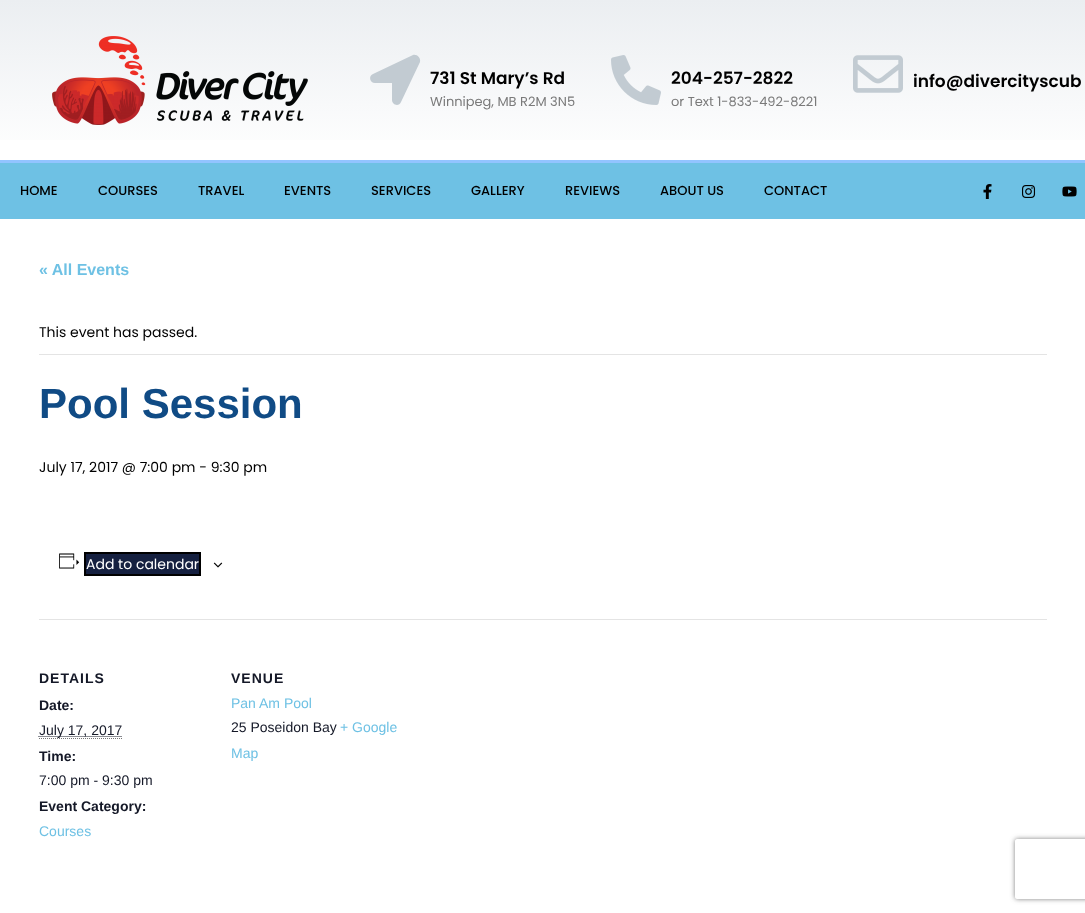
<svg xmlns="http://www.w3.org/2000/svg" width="1085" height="913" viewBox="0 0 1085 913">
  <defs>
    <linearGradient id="g1" gradientUnits="userSpaceOnUse" x1="543" y1="0" x2="543" y2="160"><stop offset="0" stop-color="#ebeef1"/><stop offset="1" stop-color="#ffffff"/></linearGradient>
    <clipPath id="clip1"><path d="M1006 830H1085V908H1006ZM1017 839H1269C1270 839 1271 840 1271 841V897C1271 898 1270 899 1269 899H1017C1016 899 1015 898 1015 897V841C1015 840 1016 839 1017 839Z" clip-rule="evenodd"/></clipPath>
    <filter id="blur1" x="-50%" y="-200%" width="200%" height="500%"><feGaussianBlur stdDeviation="2.5"/></filter>
  </defs>
  <rect width="100%" height="100%" fill="#ffffff"/>
  <rect x="0" y="0" width="1085" height="140" fill="url(#g1)"/>
  <image x="52" y="36" width="256" height="89" href="img1.png"/>
  <path d="M413 55L373 74C368 76 370 83 375 83H392V100C392 105 399 107 401 102L420 62C421 58 417 54 413 55Z" fill="#c2cbd2"/>
  <text x="430" y="84" font-family="Poppins" font-size="17" font-weight="600" fill="#000000">731 St Mary’s Rd</text>
  <text x="430" y="106" font-family="Poppins" font-size="13" fill="#7a7a7a">Winnipeg, MB R2M 3N5</text>
  <image x="611" y="55" width="50" height="50" href="img2.png"/>
  <text x="671" y="84" font-family="Poppins" font-size="17" font-weight="600" fill="#000000">204-257-2822</text>
  <text x="671" y="106" font-family="Poppins" font-size="13" fill="#7a7a7a">or Text 1-833-492-8221</text>
  <image x="853" y="55" width="50" height="38" href="img3.png"/>
  <text x="913" y="87" font-family="Poppins" font-size="17" font-weight="600" fill="#000000">info@divercityscub</text>
  <rect x="0" y="163" width="1085" height="56" fill="#6ec1e4"/>
  <rect x="0" y="160" width="1085" height="3" fill="#92c4ff"/>
  <text x="20" y="195" font-family="Poppins" font-size="13" font-weight="500" fill="#000000">HOME</text>
  <text x="98" y="195" font-family="Poppins" font-size="13" font-weight="500" fill="#000000">COURSES</text>
  <text x="198" y="195" font-family="Poppins" font-size="13" font-weight="500" fill="#000000">TRAVEL</text>
  <text x="284" y="195" font-family="Poppins" font-size="13" font-weight="500" fill="#000000">EVENTS</text>
  <text x="371" y="195" font-family="Poppins" font-size="13" font-weight="500" fill="#000000">SERVICES</text>
  <text x="471" y="195" font-family="Poppins" font-size="13" font-weight="500" fill="#000000">GALLERY</text>
  <text x="565" y="195" font-family="Poppins" font-size="13" font-weight="500" fill="#000000">REVIEWS</text>
  <text x="660" y="195" font-family="Poppins" font-size="13" font-weight="500" fill="#000000">ABOUT US</text>
  <text x="764" y="195" font-family="Poppins" font-size="13" font-weight="500" fill="#000000">CONTACT</text>
  <image x="983" y="184" width="9" height="15" href="img4.png"/>
  <image x="1022" y="185" width="14" height="13" href="img5.png"/>
  <image x="1062" y="186" width="15" height="11" href="img6.png"/>
  <text x="39" y="275" font-family="Liberation Sans" font-size="16" font-weight="bold" fill="#6ec1e4">« All Events</text>
  <rect x="39" y="354" width="1008" height="1" fill="#e4e4e4"/>
  <text x="39" y="337" font-family="Poppins" font-size="14" fill="#000000">This event has passed.</text>
  <text x="39" y="418" font-family="Liberation Sans" font-size="42" font-weight="bold" fill="#104b85">Pool Session</text>
  <text x="39" y="472" font-family="Poppins" font-size="14" fill="#000000">July 17, 2017 @ 7:00 pm - 9:30 pm</text>
  <image x="59" y="553" width="21" height="16" href="img7.png"/>
  <rect x="85" y="553" width="115" height="22" fill="#152040" stroke="#000000" stroke-width="2"/>
  <text x="86" y="569" font-family="Poppins" font-size="14" fill="#ffffff">Add to calendar</text>
  <image x="213" y="562" width="10" height="6" href="img8.png"/>
  <rect x="39" y="619" width="1008" height="1" fill="#e4e4e4"/>
  <text x="39" y="683" font-family="Liberation Sans" font-size="14" font-weight="bold" letter-spacing="1" fill="#141827">DETAILS</text>
  <text x="39" y="710" font-family="Liberation Sans" font-size="14" font-weight="bold" fill="#141827">Date:</text>
  <path d="M38.5 736.5H122" fill="none" stroke="#141827" stroke-dasharray="1 1"/>
  <text x="39" y="735" font-family="Liberation Sans" font-size="14" fill="#141827">July 17, 2017</text>
  <path d="M39 738.5H122" fill="none" stroke="#777777" stroke-dasharray="1 1"/>
  <text x="39" y="761" font-family="Liberation Sans" font-size="14" font-weight="bold" fill="#141827">Time:</text>
  <text x="39" y="785" font-family="Liberation Sans" font-size="14" fill="#141827">7:00 pm - 9:30 pm</text>
  <text x="39" y="811" font-family="Liberation Sans" font-size="14" font-weight="bold" fill="#141827">Event Category:</text>
  <text x="39" y="836" font-family="Liberation Sans" font-size="14" fill="#6ec1e4">Courses</text>
  <text x="231" y="683" font-family="Liberation Sans" font-size="14" font-weight="bold" letter-spacing="1" fill="#141827">VENUE</text>
  <text x="231" y="708" font-family="Liberation Sans" font-size="14" fill="#6ec1e4">Pan Am Pool</text>
  <text x="231" y="732" font-family="Liberation Sans" font-size="14" fill="#141827">25 Poseidon Bay</text>
  <text x="340" y="732" font-family="Liberation Sans" font-size="14" fill="#6ec1e4">+ Google</text>
  <text x="231" y="758" font-family="Liberation Sans" font-size="14" fill="#6ec1e4">Map</text>
  <g clip-path="url(#clip1)">
    <rect x="1015" y="839" width="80" height="60" rx="2" fill="#808080" filter="url(#blur1)"/>
  </g>
</svg>
